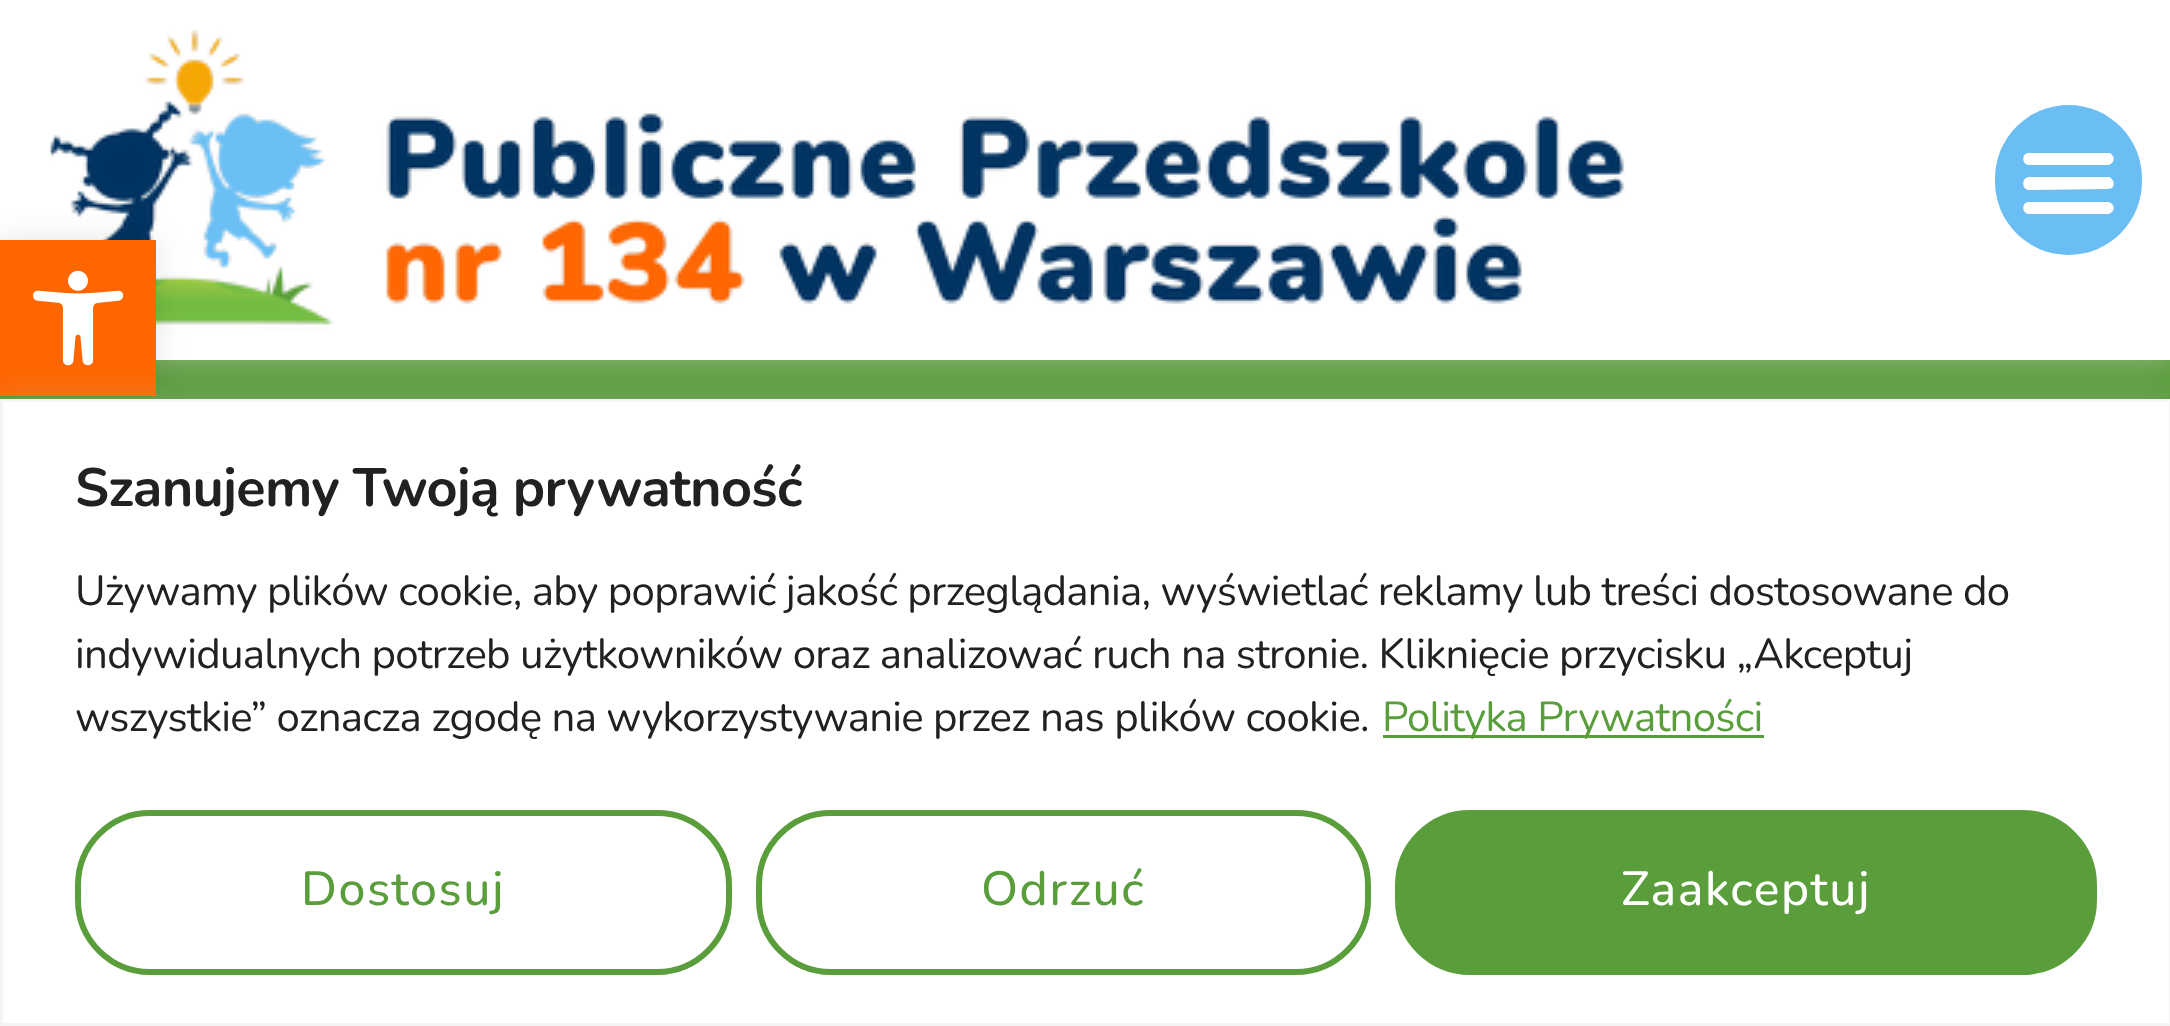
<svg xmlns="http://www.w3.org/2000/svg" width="2170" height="1026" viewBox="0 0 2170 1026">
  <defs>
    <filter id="blur1" x="-50%" y="-200%" width="200%" height="500%"><feGaussianBlur stdDeviation="15"/></filter>
  </defs>
  <rect width="100%" height="100%" fill="#5a9e3c"/>
  <rect x="0" y="0" width="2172" height="360" fill="#cecece" fill-opacity="0.5" filter="url(#blur1)"/>
  <rect x="0" y="0" width="2170" height="360" fill="#ffffff"/>
  <image x="50" y="30" width="1575" height="300" href="img1.png"/>
  <rect x="1995" y="105" width="147" height="150" rx="73.5" fill="#6abef4"/>
  <path d="M2029 165H2109L2112 163C2115 160 2114 154 2109 153H2028C2021 154 2022 165 2029 165ZM2029 190L2109 189L2112 188C2115 185 2114 179 2109 177H2028C2021 179 2022 190 2029 190ZM2029 214H2109L2112 212C2115 209 2114 204 2109 202H2028C2021 203 2022 214 2029 214Z" fill="#ffffff"/>
  <rect x="0" y="240" width="156" height="156" fill="#000000" fill-opacity="0.1" filter="url(#blur1)"/>
  <rect x="0" y="240" width="156" height="156" fill="#ff6600"/>
  <image x="33" y="270" width="91" height="96" href="img2.png"/>
  <rect x="0" y="396" width="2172" height="627" fill="#acabab" fill-opacity="0.3" filter="url(#blur1)"/>
  <rect x="1.5" y="400.5" width="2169" height="624" fill="#ffffff" stroke="#f4f4f4" stroke-width="3"/>
  <text x="75" y="506" font-family="Nunito" font-size="54" font-weight="bold" letter-spacing="-0.72" fill="#212121">Szanujemy Twoją prywatność</text>
  <text x="75" y="605" font-family="Nunito" font-size="42" letter-spacing="-0.72" fill="#212121">Używamy plików cookie, aby poprawić jakość przeglądania, wyświetlać reklamy lub treści dostosowane do</text>
  <text x="75" y="668" font-family="Nunito" font-size="42" letter-spacing="-0.72" fill="#212121">indywidualnych potrzeb użytkowników oraz analizować ruch na stronie. Kliknięcie przycisku „Akceptuj</text>
  <text x="75" y="731" font-family="Nunito" font-size="42" letter-spacing="-0.72" fill="#212121">wszystkie” oznacza zgodę na wykorzystywanie przez nas plików cookie.</text>
  <rect x="1383" y="735" width="381" height="3" fill="#5a9e3c"/>
  <text x="1382" y="731" font-family="Nunito" font-size="42" letter-spacing="-0.72" fill="#5a9e3c">Polityka Prywatności</text>
  <rect x="78" y="813" width="651" height="159" rx="72" fill="none" stroke="#5a9e3c" stroke-width="6"/>
  <text x="301" y="905" font-family="Nunito" font-size="48" font-weight="500" letter-spacing="1.6" fill="#5a9e3c">Dostosuj</text>
  <rect x="759" y="813" width="609" height="159" rx="72" fill="none" stroke="#5a9e3c" stroke-width="6"/>
  <text x="981" y="905" font-family="Nunito" font-size="48" font-weight="500" letter-spacing="1.6" fill="#5a9e3c">Odrzuć</text>
  <rect x="1398" y="813" width="696" height="159" rx="72" fill="#5a9e3c" stroke="#5a9e3c" stroke-width="6"/>
  <text x="1621" y="905" font-family="Nunito" font-size="48" font-weight="500" letter-spacing="1.6" fill="#ffffff">Zaakceptuj</text>
</svg>
